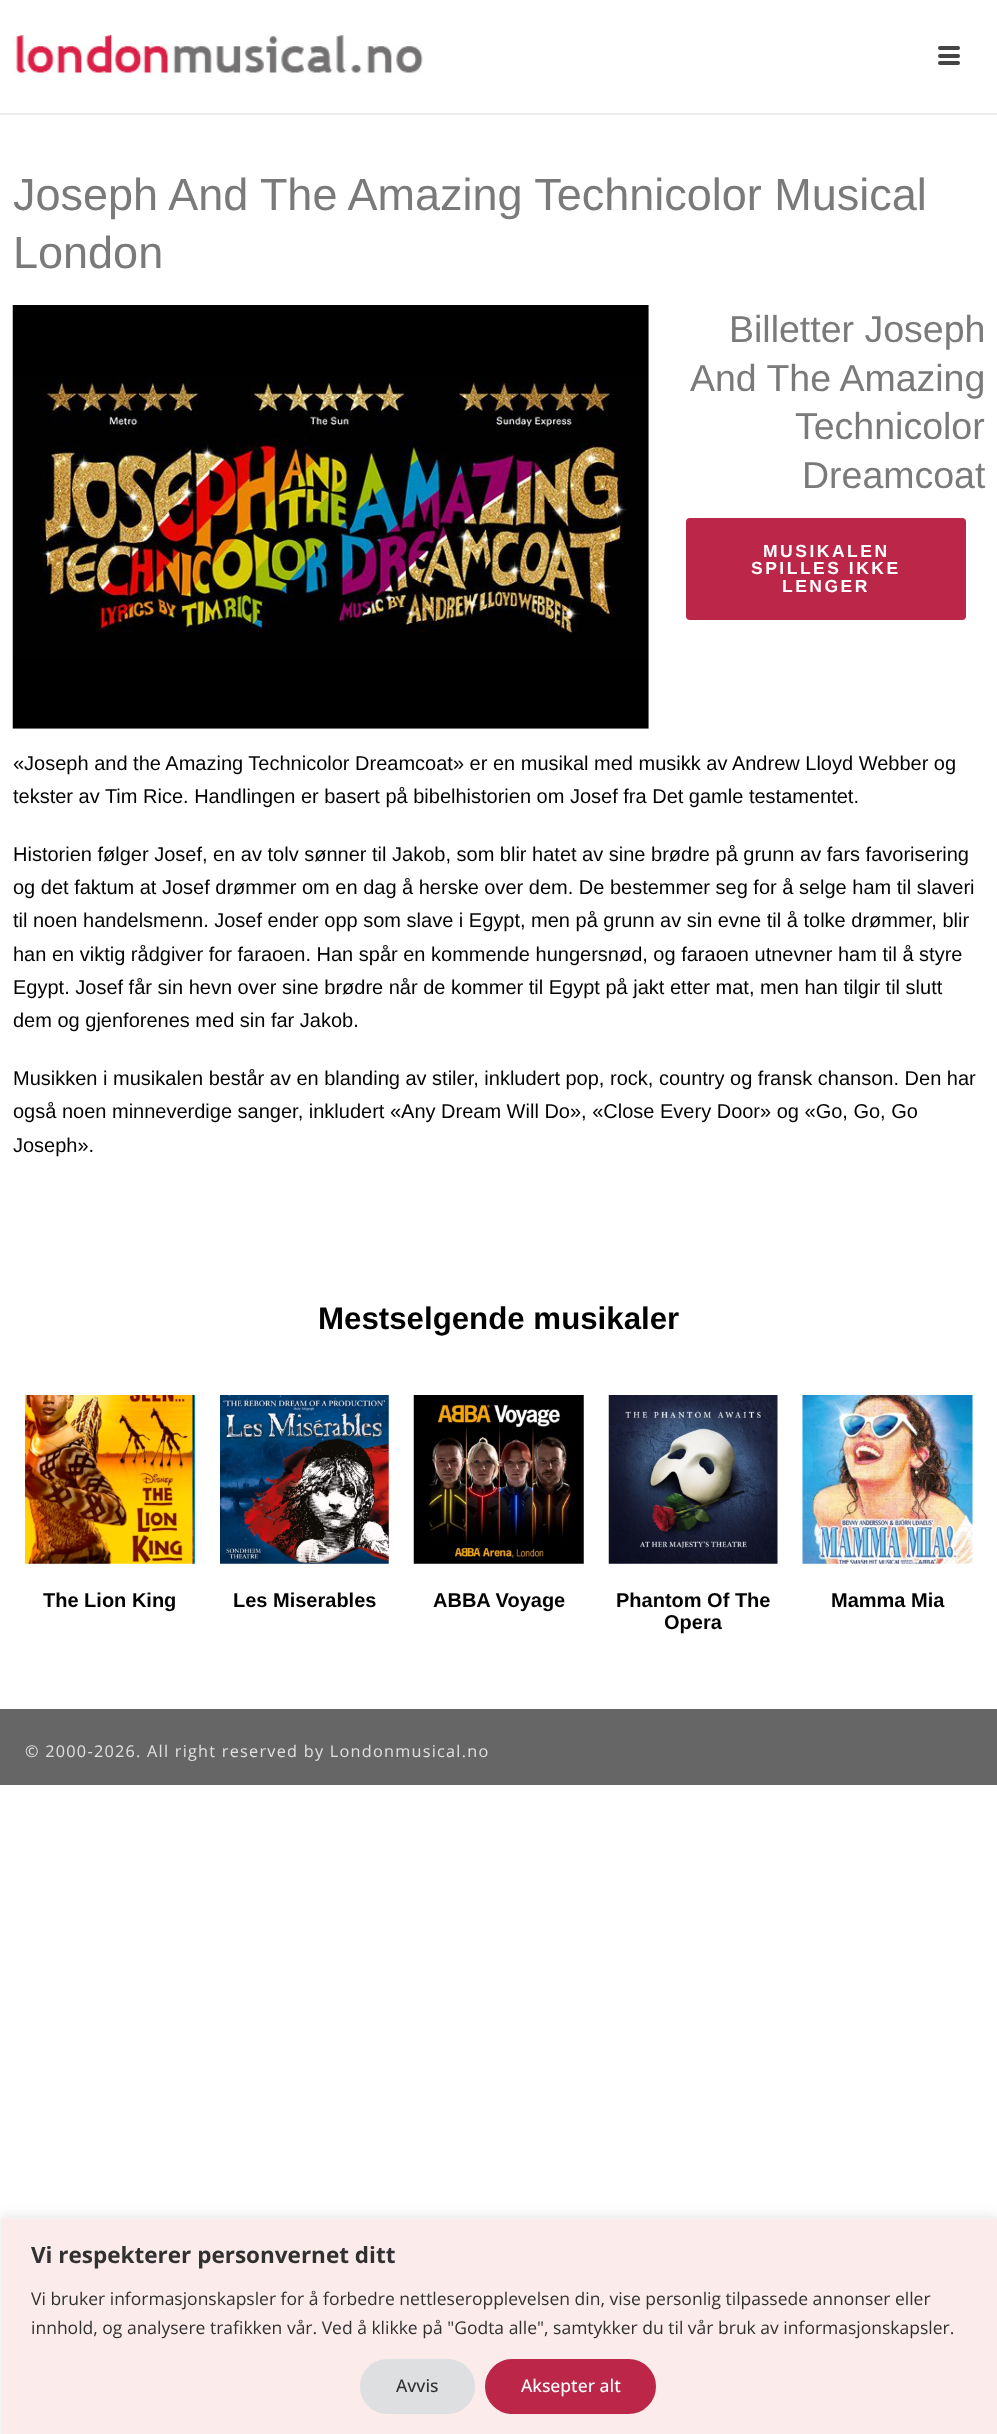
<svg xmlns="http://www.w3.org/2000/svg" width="997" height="2434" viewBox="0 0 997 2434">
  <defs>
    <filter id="blur1" x="-50%" y="-200%" width="200%" height="500%"><feGaussianBlur stdDeviation="6"/></filter>
  </defs>
  <rect width="100%" height="100%" fill="#ffffff"/>
  <rect x="0" y="113" width="997" height="2" fill="#ededed"/>
  <image x="10" y="34" width="413" height="41" href="img1.png"/>
  <rect x="938" y="46" width="22" height="4" rx="2" fill="#444444"/>
  <rect x="938" y="54" width="22" height="4" rx="2" fill="#444444"/>
  <rect x="938" y="61" width="22" height="4" rx="2" fill="#444444"/>
  <text x="13" y="210" font-family="Liberation Sans" font-size="45" fill="#7a7a7a">Joseph And The Amazing Technicolor Musical</text>
  <text x="13" y="268" font-family="Liberation Sans" font-size="45" fill="#7a7a7a">London</text>
  <image x="12" y="305" width="637" height="424" href="img2.png"/>
  <text x="729" y="342" font-family="Liberation Sans" font-size="37.5" fill="#7a7a7a">Billetter Joseph</text>
  <text x="690" y="391" font-family="Liberation Sans" font-size="37.5" fill="#7a7a7a">And The Amazing</text>
  <text x="795" y="439" font-family="Liberation Sans" font-size="37.5" fill="#7a7a7a">Technicolor</text>
  <text x="802" y="488" font-family="Liberation Sans" font-size="37.5" fill="#7a7a7a">Dreamcoat</text>
  <rect x="686" y="518" width="280" height="102" rx="4" fill="#bc2649"/>
  <text x="763" y="557" font-family="Liberation Sans" font-size="17.5" font-weight="bold" letter-spacing="2.5" fill="#ffffff">MUSIKALEN</text>
  <text x="751" y="574" font-family="Liberation Sans" font-size="17.5" font-weight="bold" letter-spacing="2.5" fill="#ffffff">SPILLES IKKE</text>
  <text x="782" y="592" font-family="Liberation Sans" font-size="17.5" font-weight="bold" letter-spacing="2.5" fill="#ffffff">LENGER</text>
  <text x="13" y="770" font-family="Liberation Sans" font-size="20" fill="#020202">«Joseph and the Amazing Technicolor Dreamcoat» er en musikal med musikk av Andrew Lloyd Webber og</text>
  <text x="13" y="803" font-family="Liberation Sans" font-size="20" fill="#020202">tekster av Tim Rice. Handlingen er basert på bibelhistorien om Josef fra Det gamle testamentet.</text>
  <text x="13" y="861" font-family="Liberation Sans" font-size="20" fill="#020202">Historien følger Josef, en av tolv sønner til Jakob, som blir hatet av sine brødre på grunn av fars favorisering</text>
  <text x="13" y="894" font-family="Liberation Sans" font-size="20" fill="#020202">og det faktum at Josef drømmer om en dag å herske over dem. De bestemmer seg for å selge ham til slaveri</text>
  <text x="13" y="927" font-family="Liberation Sans" font-size="20" fill="#020202">til noen handelsmenn. Josef ender opp som slave i Egypt, men på grunn av sin evne til å tolke drømmer, blir</text>
  <text x="13" y="961" font-family="Liberation Sans" font-size="20" fill="#020202">han en viktig rådgiver for faraoen. Han spår en kommende hungersnød, og faraoen utnevner ham til å styre</text>
  <text x="13" y="994" font-family="Liberation Sans" font-size="20" fill="#020202">Egypt. Josef får sin hevn over sine brødre når de kommer til Egypt på jakt etter mat, men han tilgir til slutt</text>
  <text x="13" y="1027" font-family="Liberation Sans" font-size="20" fill="#020202">dem og gjenforenes med sin far Jakob.</text>
  <text x="13" y="1085" font-family="Liberation Sans" font-size="20" fill="#020202">Musikken i musikalen består av en blanding av stiler, inkludert pop, rock, country og fransk chanson. Den har</text>
  <text x="13" y="1118" font-family="Liberation Sans" font-size="20" fill="#020202">også noen minneverdige sanger, inkludert «Any Dream Will Do», «Close Every Door» og «Go, Go, Go</text>
  <text x="13" y="1152" font-family="Liberation Sans" font-size="20" fill="#020202">Joseph».</text>
  <text x="318" y="1329" font-family="Liberation Sans" font-size="31.25" font-weight="bold" fill="#020202">Mestselgende musikaler</text>
  <image x="25" y="1395" width="170" height="169" href="img3.png"/>
  <text x="43" y="1607" font-family="Liberation Sans" font-size="20" font-weight="bold" fill="#020202">The Lion King</text>
  <image x="220" y="1395" width="169" height="169" href="img4.png"/>
  <text x="233" y="1607" font-family="Liberation Sans" font-size="20" font-weight="bold" fill="#020202">Les Miserables</text>
  <image x="413" y="1395" width="171" height="169" href="img5.png"/>
  <text x="433" y="1607" font-family="Liberation Sans" font-size="20" font-weight="bold" fill="#020202">ABBA Voyage</text>
  <image x="608" y="1395" width="170" height="169" href="img6.png"/>
  <text x="616" y="1607" font-family="Liberation Sans" font-size="20" font-weight="bold" fill="#020202">Phantom Of The</text>
  <text x="664" y="1629" font-family="Liberation Sans" font-size="20" font-weight="bold" fill="#020202">Opera</text>
  <image x="802" y="1395" width="171" height="169" href="img7.png"/>
  <text x="831" y="1607" font-family="Liberation Sans" font-size="20" font-weight="bold" fill="#020202">Mamma Mia</text>
  <rect x="0" y="1709" width="997" height="76" fill="#666666"/>
  <text x="25" y="1757" font-family="Open Sans" font-size="16.25" letter-spacing="1.25" fill="#e0e0e0">© 2000-2026. All right reserved by Londonmusical.no</text>
  <rect x="0" y="2216" width="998" height="218" fill="#acabab" fill-opacity="0.3" filter="url(#blur1)"/>
  <rect x="0.5" y="2218.5" width="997" height="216" fill="#fbebeb" stroke="#f4f4f4"/>
  <text x="31" y="2263" font-family="Open Sans" font-size="22.5" font-weight="bold" fill="#323132">Vi respekterer personvernet ditt</text>
  <text x="31" y="2305" font-family="Open Sans" font-size="17.5" fill="#323132">Vi bruker informasjonskapsler for å forbedre nettleseropplevelsen din, vise personlig tilpassede annonser eller</text>
  <text x="31" y="2334" font-family="Open Sans" font-size="17.5" fill="#323132">innhold, og analysere trafikken vår. Ved å klikke på "Godta alle", samtykker du til vår bruk av informasjonskapsler.</text>
  <rect x="361.5" y="2360.5" width="112" height="52" rx="26" fill="#dedfe0" stroke="#dedfe0" stroke-width="3"/>
  <text x="396" y="2392" font-family="Open Sans" font-size="17.5" font-weight="500" fill="#323132">Avvis</text>
  <rect x="486.5" y="2360.5" width="168" height="52" rx="26" fill="#bc2649" stroke="#bc2649" stroke-width="3"/>
  <text x="521" y="2392" font-family="Open Sans" font-size="17.5" font-weight="500" fill="#ffffff">Aksepter alt</text>
</svg>
